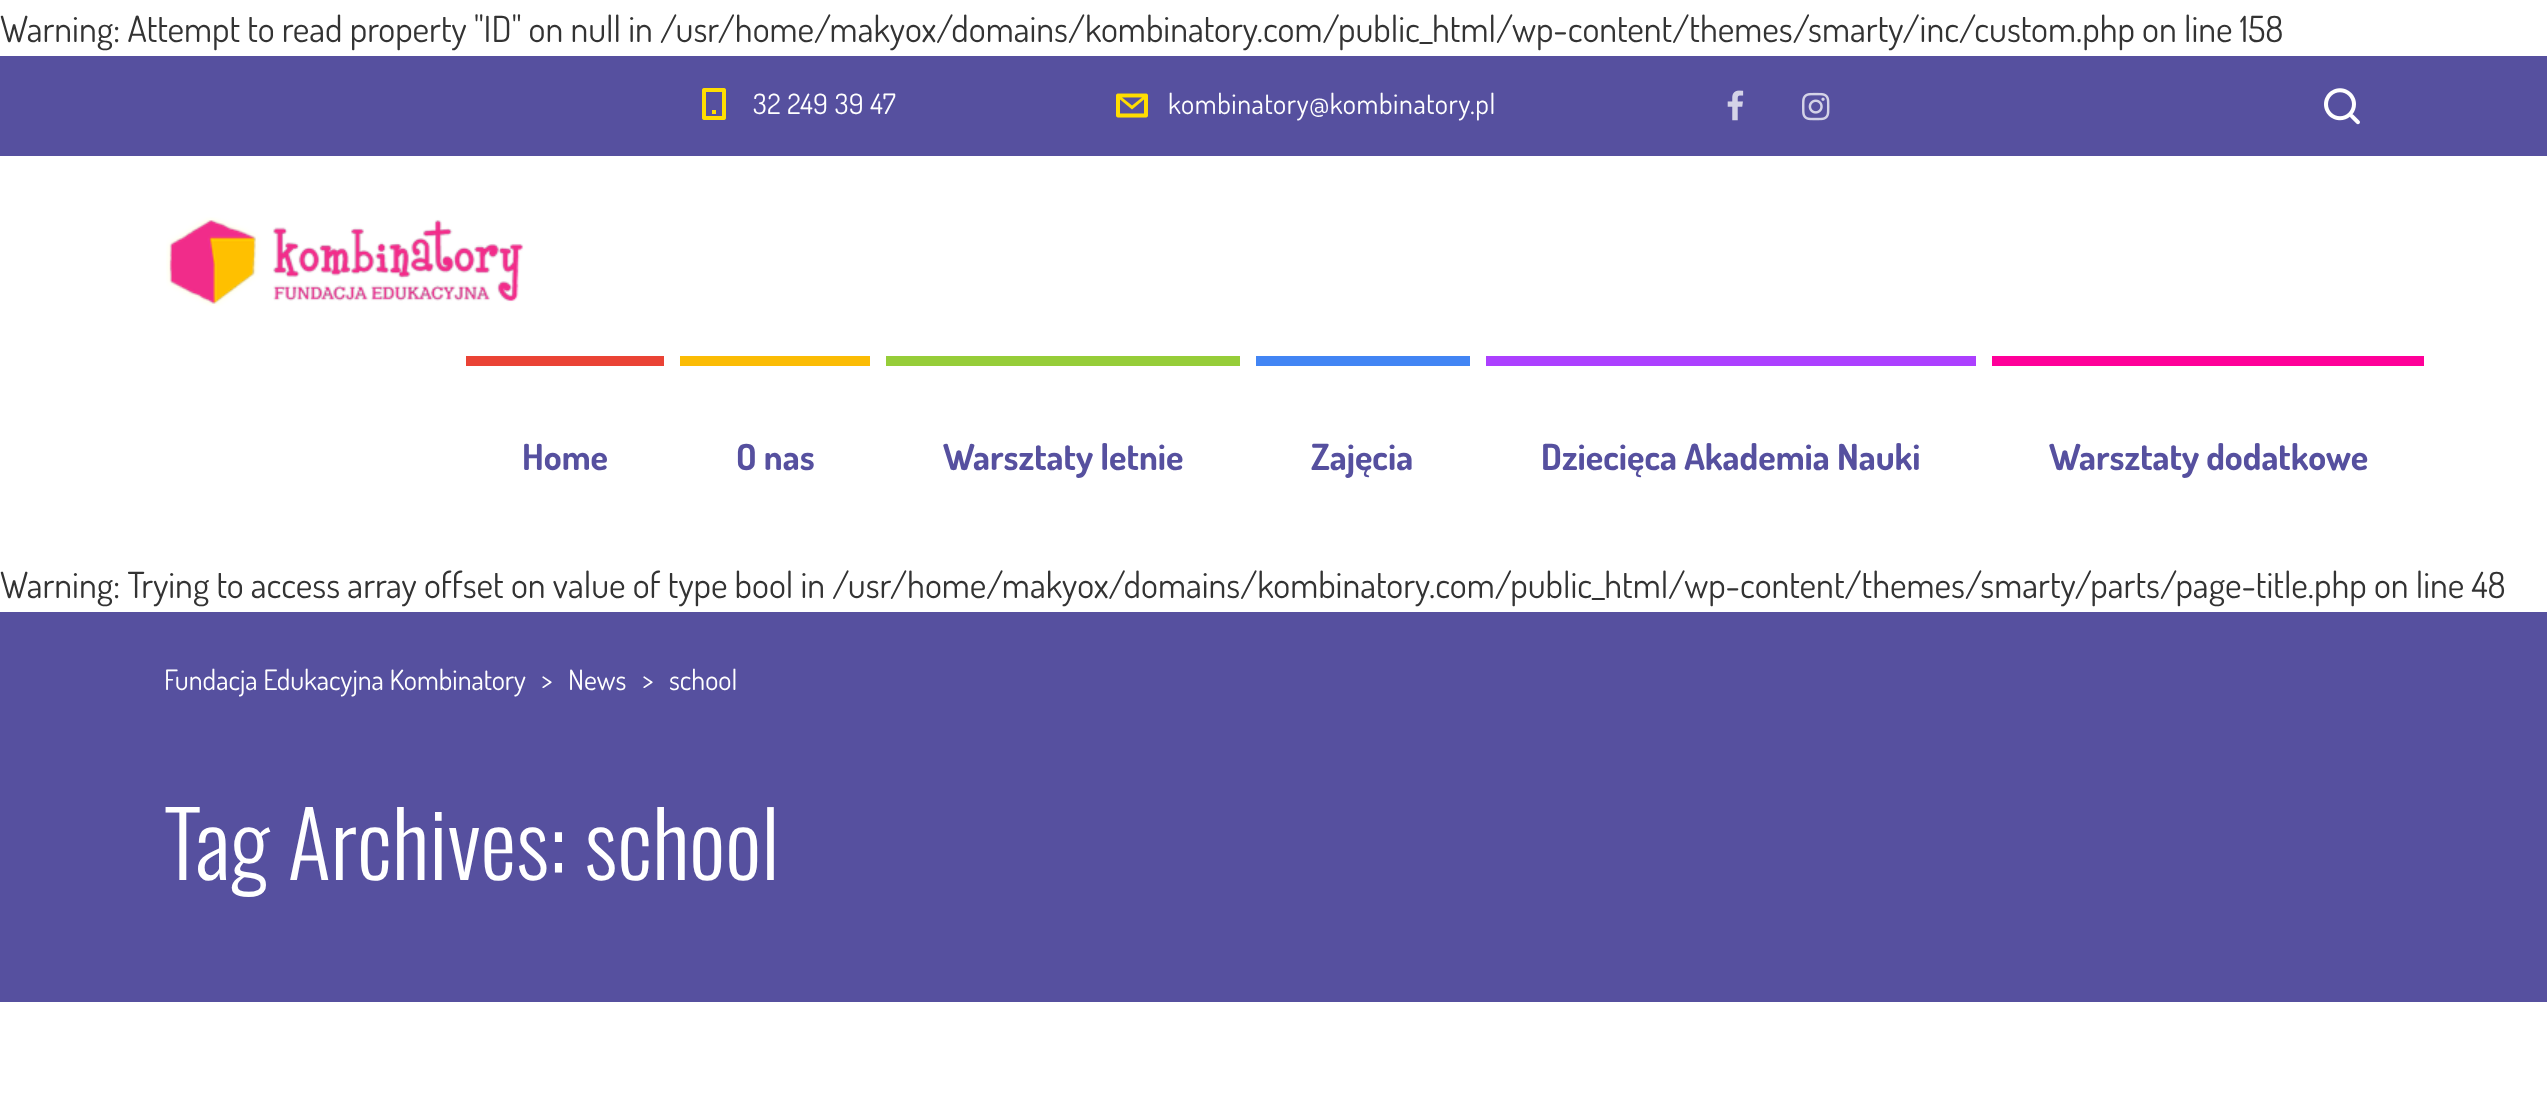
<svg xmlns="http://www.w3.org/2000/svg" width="2547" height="1118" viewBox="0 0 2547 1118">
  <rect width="100%" height="100%" fill="#ffffff"/>
  <text x="0" y="42" font-family="Dosis" font-size="36" fill="#333333">Warning: Attempt to read property "ID" on null in /usr/home/makyox/domains/kombinatory.com/public_html/wp-content/themes/smarty/inc/custom.php on line 158</text>
  <rect x="0" y="56" width="2547" height="100" fill="#56509f"/>
  <image x="702" y="88" width="24" height="32" href="img1.png"/>
  <text x="753" y="114" font-family="Dosis" font-size="28" letter-spacing="0.6" fill="#ffffff">32 249 39 47</text>
  <image x="1116" y="93" width="32" height="25" href="img2.png"/>
  <text x="1168" y="114" font-family="Dosis" font-size="28" letter-spacing="0.6" fill="#ffffff">kombinatory@kombinatory.pl</text>
  <image x="1727" y="90" width="17" height="31" href="img3.png"/>
  <image x="1802" y="92" width="28" height="29" href="img4.png"/>
  <image x="2324" y="88" width="36" height="37" href="img5.png"/>
  <image x="166" y="217" width="358" height="89" href="img6.png"/>
  <rect x="466" y="356" width="198" height="10" fill="#ea4335"/>
  <text x="522" y="470" font-family="Dosis" font-size="36" font-weight="bold" fill="#56509f">Home</text>
  <rect x="680" y="356" width="190" height="10" fill="#fbbc05"/>
  <text x="736" y="470" font-family="Dosis" font-size="36" font-weight="bold" fill="#56509f">O nas</text>
  <rect x="886" y="356" width="354" height="10" fill="#96cd39"/>
  <text x="943" y="470" font-family="Dosis" font-size="36" font-weight="bold" fill="#56509f">Warsztaty letnie</text>
  <rect x="1256" y="356" width="214" height="10" fill="#4285f4"/>
  <text x="1311" y="470" font-family="Dosis" font-size="36" font-weight="bold" fill="#56509f">Zajęcia</text>
  <rect x="1486" y="356" width="490" height="10" fill="#ac40ff"/>
  <text x="1541" y="470" font-family="Dosis" font-size="36" font-weight="bold" fill="#56509f">Dziecięca Akademia Nauki</text>
  <rect x="1992" y="356" width="432" height="10" fill="#ff0099"/>
  <text x="2049" y="470" font-family="Dosis" font-size="36" font-weight="bold" fill="#56509f">Warsztaty dodatkowe</text>
  <text x="0" y="598" font-family="Dosis" font-size="36" fill="#333333">Warning: Trying to access array offset on value of type bool in /usr/home/makyox/domains/kombinatory.com/public_html/wp-content/themes/smarty/parts/page-title.php on line 48</text>
  <rect x="0" y="612" width="2547" height="390" fill="#56509f"/>
  <text x="164" y="690" font-family="Dosis" font-size="28" fill="#ffffff">Fundacja Edukacyjna Kombinatory</text>
  <text x="541" y="690" font-family="Dosis" font-size="28" fill="#ffffff">&gt;</text>
  <text x="568" y="690" font-family="Dosis" font-size="28" fill="#ffffff">News</text>
  <text x="642" y="690" font-family="Dosis" font-size="28" fill="#ffffff">&gt;</text>
  <text x="669" y="690" font-family="Dosis" font-size="28" fill="#ffffff">school</text>
  <text x="164" y="880" font-family="Oswald" font-size="90" font-weight="300" fill="#ffffff">Tag Archives: school</text>
</svg>
